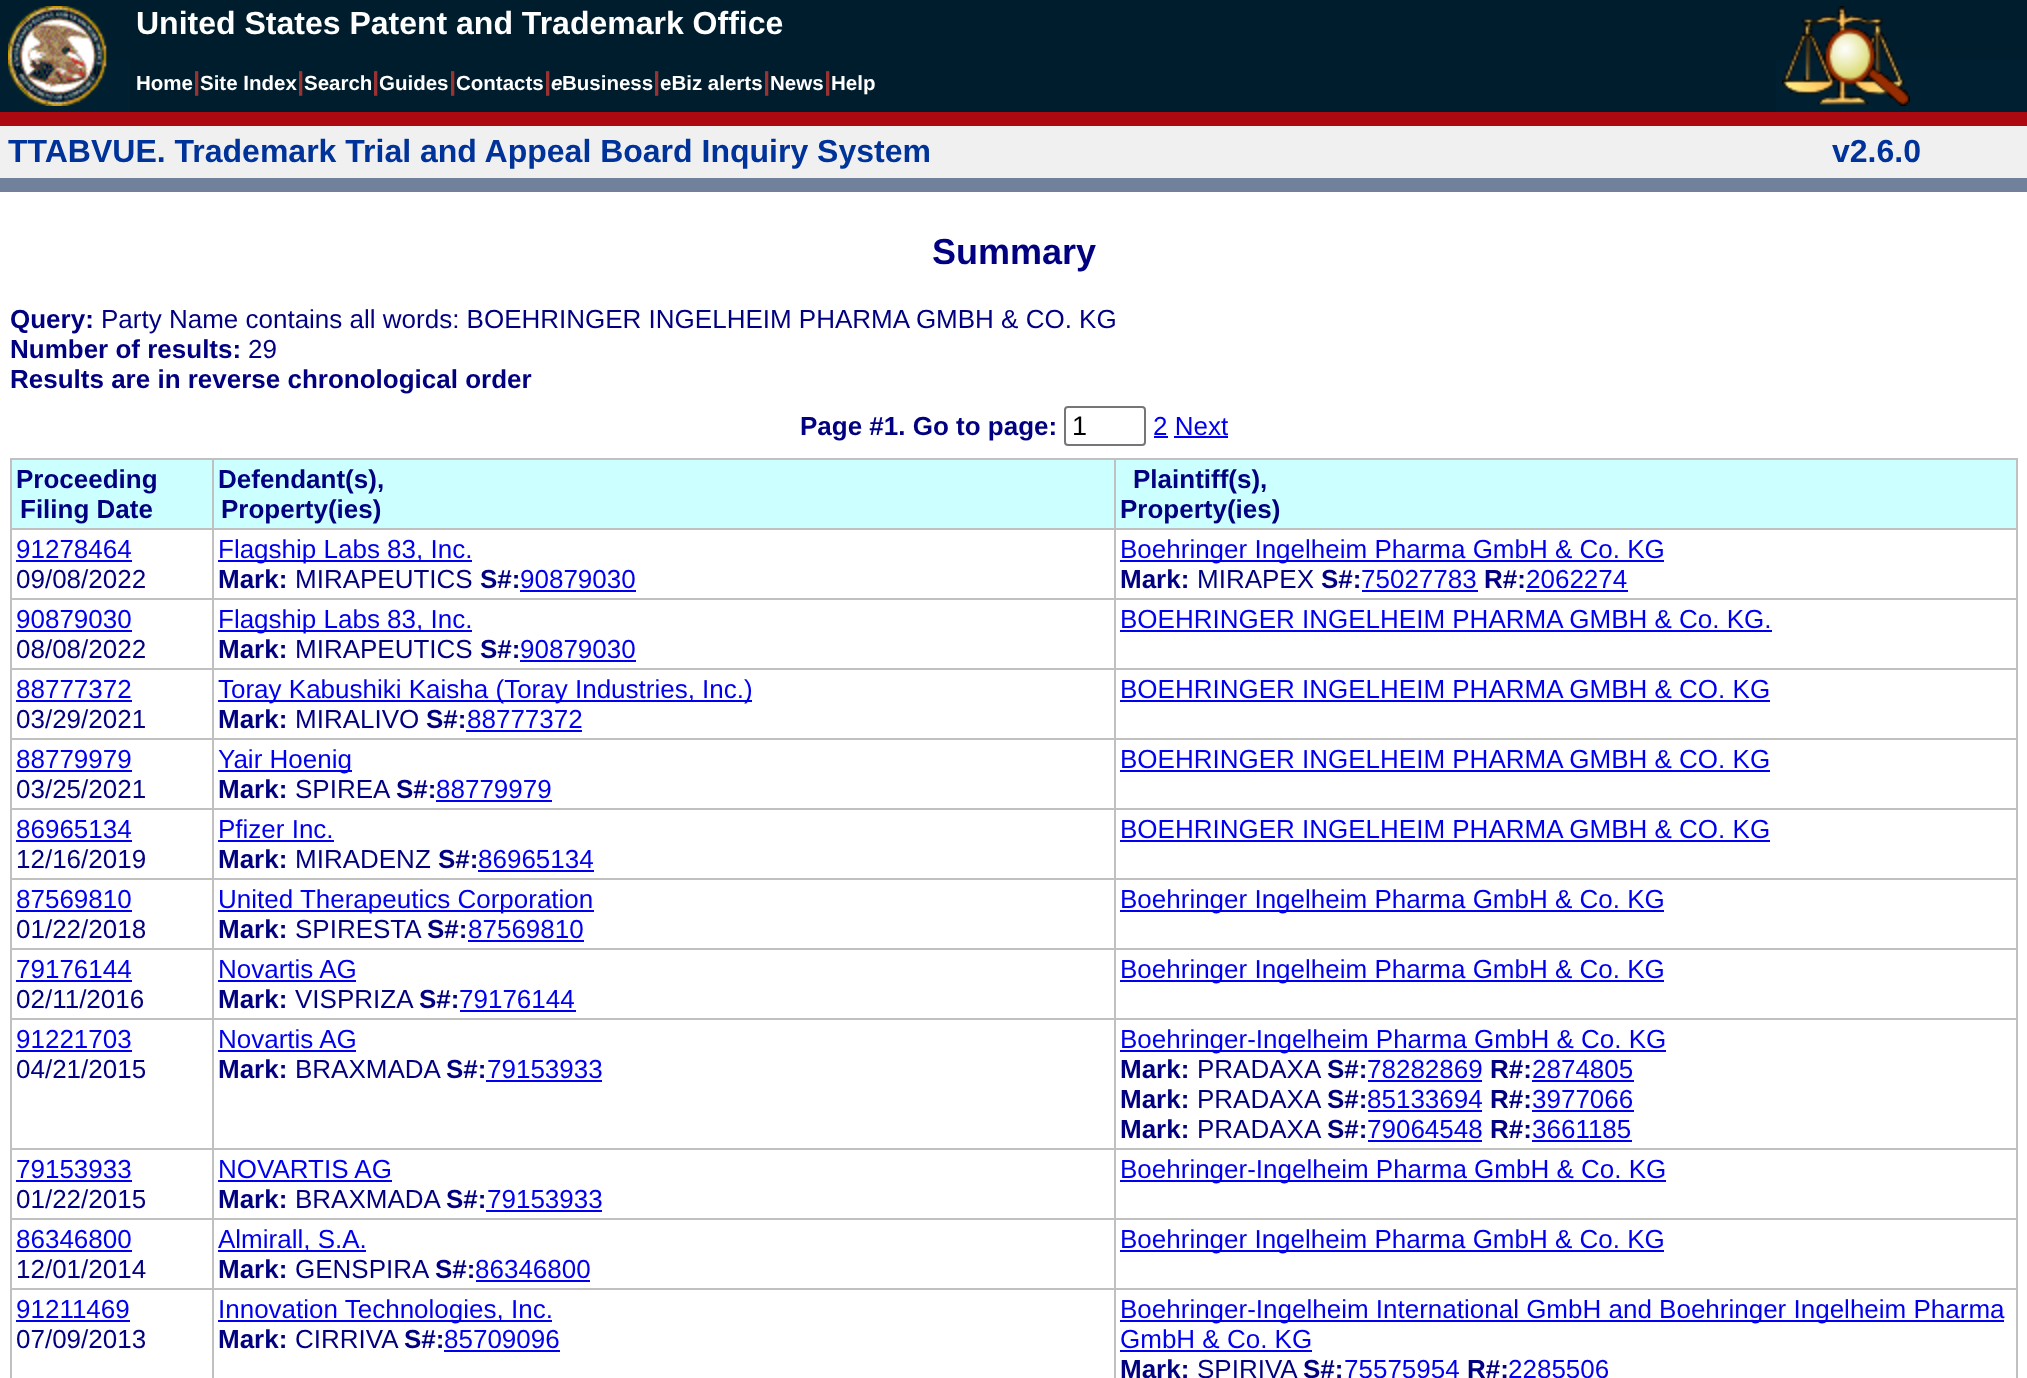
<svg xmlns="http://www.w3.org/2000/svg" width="2027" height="1378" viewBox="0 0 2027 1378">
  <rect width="100%" height="100%" fill="#ffffff"/>
  <rect x="0" y="0" width="2027" height="60" fill="#001d2d"/>
  <rect x="0" y="60" width="2027" height="52" fill="#002032"/>
  <image x="8" y="6" width="99" height="100" href="img1.png"/>
  <text x="136" y="34" font-family="Liberation Sans" font-size="32" font-weight="bold" fill="#ffffff">United States Patent and Trademark Office</text>
  <image x="1782" y="6" width="128" height="100" href="img2.png"/>
  <rect x="130" y="60" width="1646" height="52" fill="#001d2d"/>
  <text x="136" y="90" font-family="Liberation Sans" font-size="20.5" font-weight="bold" fill="#ffffff">Home</text>
  <text x="193" y="90" font-family="Liberation Sans" font-size="26" font-weight="bold" fill="#993333">|</text>
  <text x="200" y="90" font-family="Liberation Sans" font-size="20.5" font-weight="bold" fill="#ffffff">Site Index</text>
  <text x="297" y="90" font-family="Liberation Sans" font-size="26" font-weight="bold" fill="#993333">|</text>
  <text x="304" y="90" font-family="Liberation Sans" font-size="20.5" font-weight="bold" fill="#ffffff">Search</text>
  <text x="372" y="90" font-family="Liberation Sans" font-size="26" font-weight="bold" fill="#993333">|</text>
  <text x="379" y="90" font-family="Liberation Sans" font-size="20.5" font-weight="bold" fill="#ffffff">Guides</text>
  <text x="449" y="90" font-family="Liberation Sans" font-size="26" font-weight="bold" fill="#993333">|</text>
  <text x="456" y="90" font-family="Liberation Sans" font-size="20.5" font-weight="bold" fill="#ffffff">Contacts</text>
  <text x="544" y="90" font-family="Liberation Sans" font-size="26" font-weight="bold" fill="#993333">|</text>
  <text x="551" y="90" font-family="Liberation Sans" font-size="20.5" font-weight="bold" font-style="italic" fill="#ffffff">e</text>
  <text x="562" y="90" font-family="Liberation Sans" font-size="20.5" font-weight="bold" fill="#ffffff">Business</text>
  <text x="653" y="90" font-family="Liberation Sans" font-size="26" font-weight="bold" fill="#993333">|</text>
  <text x="660" y="90" font-family="Liberation Sans" font-size="20.5" font-weight="bold" fill="#ffffff">eBiz alerts</text>
  <text x="763" y="90" font-family="Liberation Sans" font-size="26" font-weight="bold" fill="#993333">|</text>
  <text x="770" y="90" font-family="Liberation Sans" font-size="20.5" font-weight="bold" fill="#ffffff">News</text>
  <text x="824" y="90" font-family="Liberation Sans" font-size="26" font-weight="bold" fill="#993333">|</text>
  <text x="831" y="90" font-family="Liberation Sans" font-size="20.5" font-weight="bold" fill="#ffffff">Help</text>
  <rect x="0" y="112" width="2027" height="14" fill="#ac0911"/>
  <rect x="0" y="126" width="2027" height="52" fill="#f0f0f0"/>
  <text x="8" y="162" font-family="Liberation Sans" font-size="32" font-weight="bold" fill="#003399">TTABVUE. Trademark Trial and Appeal Board Inquiry System</text>
  <text x="1832" y="162" font-family="Liberation Sans" font-size="32" font-weight="bold" fill="#003399">v2.6.0</text>
  <rect x="0" y="178" width="2027" height="14" fill="#71819b"/>
  <text x="932" y="264" font-family="Liberation Sans" font-size="36" font-weight="bold" fill="#000080">Summary</text>
  <text x="10" y="328" font-family="Liberation Sans" font-size="26" font-weight="bold" fill="#000080">Query:</text>
  <text x="101" y="328" font-family="Liberation Sans" font-size="26" fill="#000080">Party Name contains all words: BOEHRINGER INGELHEIM PHARMA GMBH &amp; CO. KG</text>
  <text x="10" y="358" font-family="Liberation Sans" font-size="26" font-weight="bold" fill="#000080">Number of results:</text>
  <text x="248" y="358" font-family="Liberation Sans" font-size="26" fill="#000080">29</text>
  <text x="10" y="388" font-family="Liberation Sans" font-size="26" font-weight="bold" fill="#000080">Results are in reverse chronological order</text>
  <text x="800" y="435" font-family="Liberation Sans" font-size="26" font-weight="bold" fill="#000080">Page #1. Go to page:</text>
  <rect x="1065" y="407" width="80" height="38" rx="3" fill="none" stroke="#767676" stroke-width="2"/>
  <text x="1072" y="435" font-family="Liberation Sans" font-size="27" fill="#000000">1</text>
  <text x="1153" y="435" font-family="Liberation Sans" font-size="26" fill="#0000ee">2 Next</text>
  <rect x="1154" y="436" width="14" height="2" fill="#0000ee"/>
  <rect x="1174" y="436" width="54" height="2" fill="#0000ee"/>
  <rect x="10" y="458" width="2008" height="920" fill="#c0c0c0"/>
  <rect x="12" y="460" width="200" height="68" fill="#ccffff"/>
  <text x="16" y="488" font-family="Liberation Sans" font-size="26" font-weight="bold" fill="#000080">Proceeding</text>
  <text x="20" y="518" font-family="Liberation Sans" font-size="26" font-weight="bold" fill="#000080">Filing Date</text>
  <rect x="214" y="460" width="900" height="68" fill="#ccffff"/>
  <text x="218" y="488" font-family="Liberation Sans" font-size="26" font-weight="bold" fill="#000080">Defendant(s),</text>
  <text x="221" y="518" font-family="Liberation Sans" font-size="26" font-weight="bold" fill="#000080">Property(ies)</text>
  <rect x="1116" y="460" width="900" height="68" fill="#ccffff"/>
  <text x="1133" y="488" font-family="Liberation Sans" font-size="26" font-weight="bold" fill="#000080">Plaintiff(s),</text>
  <text x="1120" y="518" font-family="Liberation Sans" font-size="26" font-weight="bold" fill="#000080">Property(ies)</text>
  <rect x="12" y="530" width="200" height="68" fill="#ffffff"/>
  <text x="16" y="558" font-family="Liberation Sans" font-size="26" fill="#0000ee">91278464</text>
  <rect x="16" y="560" width="116" height="2" fill="#0000ee"/>
  <text x="16" y="588" font-family="Liberation Sans" font-size="26" fill="#000080">09/08/2022</text>
  <rect x="214" y="530" width="900" height="68" fill="#ffffff"/>
  <rect x="218" y="560" width="254" height="2" fill="#0000ee"/>
  <text x="218" y="558" font-family="Liberation Sans" font-size="26" fill="#0000ee">Flagship Labs 83, Inc.</text>
  <text x="218" y="588" font-family="Liberation Sans" font-size="26" font-weight="bold" fill="#000080">Mark:</text>
  <text x="295" y="588" font-family="Liberation Sans" font-size="26" fill="#000080">MIRAPEUTICS</text>
  <text x="480" y="588" font-family="Liberation Sans" font-size="26" font-weight="bold" fill="#000080">S#:</text>
  <text x="520" y="588" font-family="Liberation Sans" font-size="26" fill="#0000ee">90879030</text>
  <rect x="520" y="590" width="116" height="2" fill="#0000ee"/>
  <rect x="1116" y="530" width="900" height="68" fill="#ffffff"/>
  <rect x="1120" y="560" width="544" height="2" fill="#0000ee"/>
  <text x="1120" y="558" font-family="Liberation Sans" font-size="26" fill="#0000ee">Boehringer Ingelheim Pharma GmbH &amp; Co. KG</text>
  <text x="1120" y="588" font-family="Liberation Sans" font-size="26" font-weight="bold" fill="#000080">Mark:</text>
  <text x="1197" y="588" font-family="Liberation Sans" font-size="26" fill="#000080">MIRAPEX</text>
  <text x="1321" y="588" font-family="Liberation Sans" font-size="26" font-weight="bold" fill="#000080">S#:</text>
  <text x="1361" y="588" font-family="Liberation Sans" font-size="26" fill="#0000ee">75027783</text>
  <rect x="1362" y="590" width="116" height="2" fill="#0000ee"/>
  <text x="1484" y="588" font-family="Liberation Sans" font-size="26" font-weight="bold" fill="#000080">R#:</text>
  <text x="1526" y="588" font-family="Liberation Sans" font-size="26" fill="#0000ee">2062274</text>
  <rect x="1526" y="590" width="102" height="2" fill="#0000ee"/>
  <rect x="12" y="600" width="200" height="68" fill="#ffffff"/>
  <text x="16" y="628" font-family="Liberation Sans" font-size="26" fill="#0000ee">90879030</text>
  <rect x="16" y="630" width="116" height="2" fill="#0000ee"/>
  <text x="16" y="658" font-family="Liberation Sans" font-size="26" fill="#000080">08/08/2022</text>
  <rect x="214" y="600" width="900" height="68" fill="#ffffff"/>
  <rect x="218" y="630" width="254" height="2" fill="#0000ee"/>
  <text x="218" y="628" font-family="Liberation Sans" font-size="26" fill="#0000ee">Flagship Labs 83, Inc.</text>
  <text x="218" y="658" font-family="Liberation Sans" font-size="26" font-weight="bold" fill="#000080">Mark:</text>
  <text x="295" y="658" font-family="Liberation Sans" font-size="26" fill="#000080">MIRAPEUTICS</text>
  <text x="480" y="658" font-family="Liberation Sans" font-size="26" font-weight="bold" fill="#000080">S#:</text>
  <text x="520" y="658" font-family="Liberation Sans" font-size="26" fill="#0000ee">90879030</text>
  <rect x="520" y="660" width="116" height="2" fill="#0000ee"/>
  <rect x="1116" y="600" width="900" height="68" fill="#ffffff"/>
  <text x="1120" y="628" font-family="Liberation Sans" font-size="26" fill="#0000ee">BOEHRINGER INGELHEIM PHARMA GMBH &amp; Co. KG.</text>
  <rect x="1120" y="630" width="652" height="2" fill="#0000ee"/>
  <rect x="12" y="670" width="200" height="68" fill="#ffffff"/>
  <text x="16" y="698" font-family="Liberation Sans" font-size="26" fill="#0000ee">88777372</text>
  <rect x="16" y="700" width="116" height="2" fill="#0000ee"/>
  <text x="16" y="728" font-family="Liberation Sans" font-size="26" fill="#000080">03/29/2021</text>
  <rect x="214" y="670" width="900" height="68" fill="#ffffff"/>
  <rect x="218" y="700" width="534" height="2" fill="#0000ee"/>
  <text x="218" y="698" font-family="Liberation Sans" font-size="26" fill="#0000ee">Toray Kabushiki Kaisha (Toray Industries, Inc.)</text>
  <text x="218" y="728" font-family="Liberation Sans" font-size="26" font-weight="bold" fill="#000080">Mark:</text>
  <text x="295" y="728" font-family="Liberation Sans" font-size="26" fill="#000080">MIRALIVO</text>
  <text x="426" y="728" font-family="Liberation Sans" font-size="26" font-weight="bold" fill="#000080">S#:</text>
  <text x="467" y="728" font-family="Liberation Sans" font-size="26" fill="#0000ee">88777372</text>
  <rect x="466" y="730" width="116" height="2" fill="#0000ee"/>
  <rect x="1116" y="670" width="900" height="68" fill="#ffffff"/>
  <text x="1120" y="698" font-family="Liberation Sans" font-size="26" fill="#0000ee">BOEHRINGER INGELHEIM PHARMA GMBH &amp; CO. KG</text>
  <rect x="1120" y="700" width="650" height="2" fill="#0000ee"/>
  <rect x="12" y="740" width="200" height="68" fill="#ffffff"/>
  <text x="16" y="768" font-family="Liberation Sans" font-size="26" fill="#0000ee">88779979</text>
  <rect x="16" y="770" width="116" height="2" fill="#0000ee"/>
  <text x="16" y="798" font-family="Liberation Sans" font-size="26" fill="#000080">03/25/2021</text>
  <rect x="214" y="740" width="900" height="68" fill="#ffffff"/>
  <rect x="218" y="770" width="134" height="2" fill="#0000ee"/>
  <text x="218" y="768" font-family="Liberation Sans" font-size="26" fill="#0000ee">Yair Hoenig</text>
  <text x="218" y="798" font-family="Liberation Sans" font-size="26" font-weight="bold" fill="#000080">Mark:</text>
  <text x="295" y="798" font-family="Liberation Sans" font-size="26" fill="#000080">SPIREA</text>
  <text x="396" y="798" font-family="Liberation Sans" font-size="26" font-weight="bold" fill="#000080">S#:</text>
  <text x="436" y="798" font-family="Liberation Sans" font-size="26" fill="#0000ee">88779979</text>
  <rect x="436" y="800" width="116" height="2" fill="#0000ee"/>
  <rect x="1116" y="740" width="900" height="68" fill="#ffffff"/>
  <text x="1120" y="768" font-family="Liberation Sans" font-size="26" fill="#0000ee">BOEHRINGER INGELHEIM PHARMA GMBH &amp; CO. KG</text>
  <rect x="1120" y="770" width="650" height="2" fill="#0000ee"/>
  <rect x="12" y="810" width="200" height="68" fill="#ffffff"/>
  <text x="16" y="838" font-family="Liberation Sans" font-size="26" fill="#0000ee">86965134</text>
  <rect x="16" y="840" width="116" height="2" fill="#0000ee"/>
  <text x="16" y="868" font-family="Liberation Sans" font-size="26" fill="#000080">12/16/2019</text>
  <rect x="214" y="810" width="900" height="68" fill="#ffffff"/>
  <text x="218" y="838" font-family="Liberation Sans" font-size="26" fill="#0000ee">Pfizer Inc.</text>
  <rect x="218" y="840" width="116" height="2" fill="#0000ee"/>
  <text x="218" y="868" font-family="Liberation Sans" font-size="26" font-weight="bold" fill="#000080">Mark:</text>
  <text x="295" y="868" font-family="Liberation Sans" font-size="26" fill="#000080">MIRADENZ</text>
  <text x="438" y="868" font-family="Liberation Sans" font-size="26" font-weight="bold" fill="#000080">S#:</text>
  <text x="478" y="868" font-family="Liberation Sans" font-size="26" fill="#0000ee">86965134</text>
  <rect x="478" y="870" width="116" height="2" fill="#0000ee"/>
  <rect x="1116" y="810" width="900" height="68" fill="#ffffff"/>
  <text x="1120" y="838" font-family="Liberation Sans" font-size="26" fill="#0000ee">BOEHRINGER INGELHEIM PHARMA GMBH &amp; CO. KG</text>
  <rect x="1120" y="840" width="650" height="2" fill="#0000ee"/>
  <rect x="12" y="880" width="200" height="68" fill="#ffffff"/>
  <text x="16" y="908" font-family="Liberation Sans" font-size="26" fill="#0000ee">87569810</text>
  <rect x="16" y="910" width="116" height="2" fill="#0000ee"/>
  <text x="16" y="938" font-family="Liberation Sans" font-size="26" fill="#000080">01/22/2018</text>
  <rect x="214" y="880" width="900" height="68" fill="#ffffff"/>
  <rect x="218" y="910" width="376" height="2" fill="#0000ee"/>
  <text x="218" y="908" font-family="Liberation Sans" font-size="26" fill="#0000ee">United Therapeutics Corporation</text>
  <text x="218" y="938" font-family="Liberation Sans" font-size="26" font-weight="bold" fill="#000080">Mark:</text>
  <text x="295" y="938" font-family="Liberation Sans" font-size="26" fill="#000080">SPIRESTA</text>
  <text x="427" y="938" font-family="Liberation Sans" font-size="26" font-weight="bold" fill="#000080">S#:</text>
  <text x="468" y="938" font-family="Liberation Sans" font-size="26" fill="#0000ee">87569810</text>
  <rect x="468" y="940" width="116" height="2" fill="#0000ee"/>
  <rect x="1116" y="880" width="900" height="68" fill="#ffffff"/>
  <rect x="1120" y="910" width="544" height="2" fill="#0000ee"/>
  <text x="1120" y="908" font-family="Liberation Sans" font-size="26" fill="#0000ee">Boehringer Ingelheim Pharma GmbH &amp; Co. KG</text>
  <rect x="12" y="950" width="200" height="68" fill="#ffffff"/>
  <text x="16" y="978" font-family="Liberation Sans" font-size="26" fill="#0000ee">79176144</text>
  <rect x="16" y="980" width="116" height="2" fill="#0000ee"/>
  <text x="16" y="1008" font-family="Liberation Sans" font-size="26" fill="#000080">02/11/2016</text>
  <rect x="214" y="950" width="900" height="68" fill="#ffffff"/>
  <text x="218" y="978" font-family="Liberation Sans" font-size="26" fill="#0000ee">Novartis AG</text>
  <rect x="218" y="980" width="138" height="2" fill="#0000ee"/>
  <text x="218" y="1008" font-family="Liberation Sans" font-size="26" font-weight="bold" fill="#000080">Mark:</text>
  <text x="295" y="1008" font-family="Liberation Sans" font-size="26" fill="#000080">VISPRIZA</text>
  <text x="419" y="1008" font-family="Liberation Sans" font-size="26" font-weight="bold" fill="#000080">S#:</text>
  <text x="459" y="1008" font-family="Liberation Sans" font-size="26" fill="#0000ee">79176144</text>
  <rect x="460" y="1010" width="116" height="2" fill="#0000ee"/>
  <rect x="1116" y="950" width="900" height="68" fill="#ffffff"/>
  <rect x="1120" y="980" width="544" height="2" fill="#0000ee"/>
  <text x="1120" y="978" font-family="Liberation Sans" font-size="26" fill="#0000ee">Boehringer Ingelheim Pharma GmbH &amp; Co. KG</text>
  <rect x="12" y="1020" width="200" height="128" fill="#ffffff"/>
  <text x="16" y="1048" font-family="Liberation Sans" font-size="26" fill="#0000ee">91221703</text>
  <rect x="16" y="1050" width="116" height="2" fill="#0000ee"/>
  <text x="16" y="1078" font-family="Liberation Sans" font-size="26" fill="#000080">04/21/2015</text>
  <rect x="214" y="1020" width="900" height="128" fill="#ffffff"/>
  <text x="218" y="1048" font-family="Liberation Sans" font-size="26" fill="#0000ee">Novartis AG</text>
  <rect x="218" y="1050" width="138" height="2" fill="#0000ee"/>
  <text x="218" y="1078" font-family="Liberation Sans" font-size="26" font-weight="bold" fill="#000080">Mark:</text>
  <text x="295" y="1078" font-family="Liberation Sans" font-size="26" fill="#000080">BRAXMADA</text>
  <text x="446" y="1078" font-family="Liberation Sans" font-size="26" font-weight="bold" fill="#000080">S#:</text>
  <text x="487" y="1078" font-family="Liberation Sans" font-size="26" fill="#0000ee">79153933</text>
  <rect x="486" y="1080" width="116" height="2" fill="#0000ee"/>
  <rect x="1116" y="1020" width="900" height="128" fill="#ffffff"/>
  <rect x="1120" y="1050" width="546" height="2" fill="#0000ee"/>
  <text x="1120" y="1048" font-family="Liberation Sans" font-size="26" fill="#0000ee">Boehringer-Ingelheim Pharma GmbH &amp; Co. KG</text>
  <text x="1120" y="1078" font-family="Liberation Sans" font-size="26" font-weight="bold" fill="#000080">Mark:</text>
  <text x="1197" y="1078" font-family="Liberation Sans" font-size="26" fill="#000080">PRADAXA</text>
  <text x="1327" y="1078" font-family="Liberation Sans" font-size="26" font-weight="bold" fill="#000080">S#:</text>
  <text x="1367" y="1078" font-family="Liberation Sans" font-size="26" fill="#0000ee">78282869</text>
  <rect x="1368" y="1080" width="114" height="2" fill="#0000ee"/>
  <text x="1490" y="1078" font-family="Liberation Sans" font-size="26" font-weight="bold" fill="#000080">R#:</text>
  <text x="1532" y="1078" font-family="Liberation Sans" font-size="26" fill="#0000ee">2874805</text>
  <rect x="1532" y="1080" width="102" height="2" fill="#0000ee"/>
  <text x="1120" y="1108" font-family="Liberation Sans" font-size="26" font-weight="bold" fill="#000080">Mark:</text>
  <text x="1197" y="1108" font-family="Liberation Sans" font-size="26" fill="#000080">PRADAXA</text>
  <text x="1327" y="1108" font-family="Liberation Sans" font-size="26" font-weight="bold" fill="#000080">S#:</text>
  <text x="1367" y="1108" font-family="Liberation Sans" font-size="26" fill="#0000ee">85133694</text>
  <rect x="1368" y="1110" width="114" height="2" fill="#0000ee"/>
  <text x="1490" y="1108" font-family="Liberation Sans" font-size="26" font-weight="bold" fill="#000080">R#:</text>
  <text x="1532" y="1108" font-family="Liberation Sans" font-size="26" fill="#0000ee">3977066</text>
  <rect x="1532" y="1110" width="102" height="2" fill="#0000ee"/>
  <text x="1120" y="1138" font-family="Liberation Sans" font-size="26" font-weight="bold" fill="#000080">Mark:</text>
  <text x="1197" y="1138" font-family="Liberation Sans" font-size="26" fill="#000080">PRADAXA</text>
  <text x="1327" y="1138" font-family="Liberation Sans" font-size="26" font-weight="bold" fill="#000080">S#:</text>
  <text x="1367" y="1138" font-family="Liberation Sans" font-size="26" fill="#0000ee">79064548</text>
  <rect x="1368" y="1140" width="114" height="2" fill="#0000ee"/>
  <text x="1490" y="1138" font-family="Liberation Sans" font-size="26" font-weight="bold" fill="#000080">R#:</text>
  <text x="1532" y="1138" font-family="Liberation Sans" font-size="26" fill="#0000ee">3661185</text>
  <rect x="1532" y="1140" width="100" height="2" fill="#0000ee"/>
  <rect x="12" y="1150" width="200" height="68" fill="#ffffff"/>
  <text x="16" y="1178" font-family="Liberation Sans" font-size="26" fill="#0000ee">79153933</text>
  <rect x="16" y="1180" width="116" height="2" fill="#0000ee"/>
  <text x="16" y="1208" font-family="Liberation Sans" font-size="26" fill="#000080">01/22/2015</text>
  <rect x="214" y="1150" width="900" height="68" fill="#ffffff"/>
  <text x="218" y="1178" font-family="Liberation Sans" font-size="26" fill="#0000ee">NOVARTIS AG</text>
  <rect x="218" y="1180" width="174" height="2" fill="#0000ee"/>
  <text x="218" y="1208" font-family="Liberation Sans" font-size="26" font-weight="bold" fill="#000080">Mark:</text>
  <text x="295" y="1208" font-family="Liberation Sans" font-size="26" fill="#000080">BRAXMADA</text>
  <text x="446" y="1208" font-family="Liberation Sans" font-size="26" font-weight="bold" fill="#000080">S#:</text>
  <text x="487" y="1208" font-family="Liberation Sans" font-size="26" fill="#0000ee">79153933</text>
  <rect x="486" y="1210" width="116" height="2" fill="#0000ee"/>
  <rect x="1116" y="1150" width="900" height="68" fill="#ffffff"/>
  <rect x="1120" y="1180" width="546" height="2" fill="#0000ee"/>
  <text x="1120" y="1178" font-family="Liberation Sans" font-size="26" fill="#0000ee">Boehringer-Ingelheim Pharma GmbH &amp; Co. KG</text>
  <rect x="12" y="1220" width="200" height="68" fill="#ffffff"/>
  <text x="16" y="1248" font-family="Liberation Sans" font-size="26" fill="#0000ee">86346800</text>
  <rect x="16" y="1250" width="116" height="2" fill="#0000ee"/>
  <text x="16" y="1278" font-family="Liberation Sans" font-size="26" fill="#000080">12/01/2014</text>
  <rect x="214" y="1220" width="900" height="68" fill="#ffffff"/>
  <rect x="218" y="1250" width="148" height="2" fill="#0000ee"/>
  <text x="218" y="1248" font-family="Liberation Sans" font-size="26" fill="#0000ee">Almirall, S.A.</text>
  <text x="218" y="1278" font-family="Liberation Sans" font-size="26" font-weight="bold" fill="#000080">Mark:</text>
  <text x="295" y="1278" font-family="Liberation Sans" font-size="26" fill="#000080">GENSPIRA</text>
  <text x="435" y="1278" font-family="Liberation Sans" font-size="26" font-weight="bold" fill="#000080">S#:</text>
  <text x="475" y="1278" font-family="Liberation Sans" font-size="26" fill="#0000ee">86346800</text>
  <rect x="476" y="1280" width="114" height="2" fill="#0000ee"/>
  <rect x="1116" y="1220" width="900" height="68" fill="#ffffff"/>
  <rect x="1120" y="1250" width="544" height="2" fill="#0000ee"/>
  <text x="1120" y="1248" font-family="Liberation Sans" font-size="26" fill="#0000ee">Boehringer Ingelheim Pharma GmbH &amp; Co. KG</text>
  <rect x="12" y="1290" width="200" height="88" fill="#ffffff"/>
  <text x="16" y="1318" font-family="Liberation Sans" font-size="26" fill="#0000ee">91211469</text>
  <rect x="16" y="1320" width="114" height="2" fill="#0000ee"/>
  <text x="16" y="1348" font-family="Liberation Sans" font-size="26" fill="#000080">07/09/2013</text>
  <rect x="214" y="1290" width="900" height="88" fill="#ffffff"/>
  <rect x="218" y="1320" width="334" height="2" fill="#0000ee"/>
  <text x="218" y="1318" font-family="Liberation Sans" font-size="26" fill="#0000ee">Innovation Technologies, Inc.</text>
  <text x="218" y="1348" font-family="Liberation Sans" font-size="26" font-weight="bold" fill="#000080">Mark:</text>
  <text x="295" y="1348" font-family="Liberation Sans" font-size="26" fill="#000080">CIRRIVA</text>
  <text x="404" y="1348" font-family="Liberation Sans" font-size="26" font-weight="bold" fill="#000080">S#:</text>
  <text x="444" y="1348" font-family="Liberation Sans" font-size="26" fill="#0000ee">85709096</text>
  <rect x="444" y="1350" width="116" height="2" fill="#0000ee"/>
  <rect x="1116" y="1290" width="900" height="88" fill="#ffffff"/>
  <rect x="1120" y="1320" width="884" height="2" fill="#0000ee"/>
  <text x="1120" y="1318" font-family="Liberation Sans" font-size="26" fill="#0000ee">Boehringer-Ingelheim International GmbH and Boehringer Ingelheim Pharma</text>
  <text x="1120" y="1348" font-family="Liberation Sans" font-size="26" fill="#0000ee">GmbH &amp; Co. KG</text>
  <rect x="1120" y="1350" width="192" height="2" fill="#0000ee"/>
  <text x="1120" y="1378" font-family="Liberation Sans" font-size="26" font-weight="bold" fill="#000080">Mark:</text>
  <text x="1197" y="1378" font-family="Liberation Sans" font-size="26" fill="#000080">SPIRIVA</text>
  <text x="1303" y="1378" font-family="Liberation Sans" font-size="26" font-weight="bold" fill="#000080">S#:</text>
  <text x="1344" y="1378" font-family="Liberation Sans" font-size="26" fill="#0000ee">75575954</text>
  <text x="1467" y="1378" font-family="Liberation Sans" font-size="26" font-weight="bold" fill="#000080">R#:</text>
  <text x="1508" y="1378" font-family="Liberation Sans" font-size="26" fill="#0000ee">2285506</text>
</svg>
